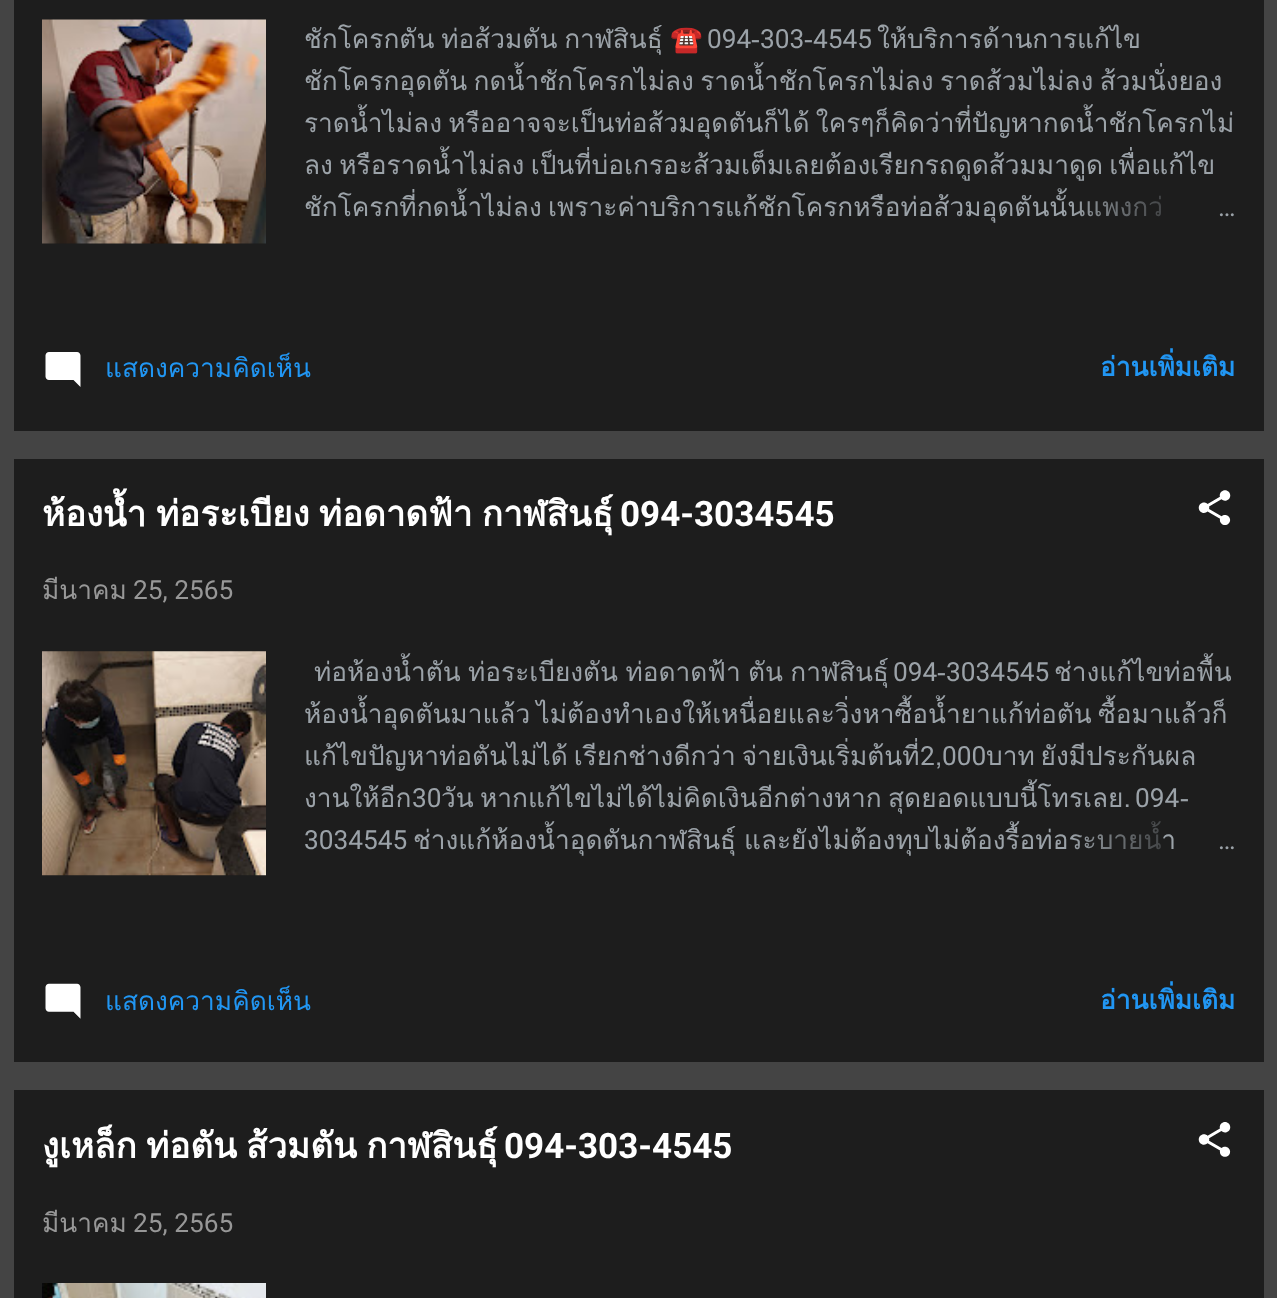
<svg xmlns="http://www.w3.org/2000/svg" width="1277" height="1298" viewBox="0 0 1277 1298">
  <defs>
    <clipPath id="clip1"><rect x="305" y="19" width="931" height="210"/></clipPath>
    <linearGradient id="g1" gradientUnits="userSpaceOnUse" x1="1236" y1="208" x2="1068" y2="208"><stop offset="0" stop-color="#1d1d1d"/><stop offset="0.2" stop-color="#1d1d1d"/><stop offset="1" stop-color="#1d1d1d" stop-opacity="0"/></linearGradient>
    <clipPath id="clip2"><rect x="305" y="651" width="931" height="210"/></clipPath>
    <linearGradient id="g2" gradientUnits="userSpaceOnUse" x1="1236" y1="840" x2="1068" y2="840"><stop offset="0" stop-color="#1d1d1d"/><stop offset="0.2" stop-color="#1d1d1d"/><stop offset="1" stop-color="#1d1d1d" stop-opacity="0"/></linearGradient>
  </defs>
  <rect width="100%" height="100%" fill="#444444"/>
  <rect x="14" y="0" width="1250" height="431" fill="#1d1d1d"/>
  <image x="42" y="19" width="224" height="225" href="img1.png"/>
  <g clip-path="url(#clip1)">
    <text x="304" y="48" word-spacing="-2" font-family="Loma" font-size="26.25" fill="#9ba2a8">ชักโครกตัน ท่อส้วมตัน กาฬสินธุ์</text>
  </g>
  <text x="670" y="48" font-family="Noto Color Emoji" font-size="26.25" fill="#9ba2a8">☎️</text>
  <text x="707" y="48" font-family="Roboto" font-size="26.25" fill="#9ba2a8">094</text>
  <text x="751" y="48" font-family="Loma" font-size="26.25" fill="#9ba2a8">-</text>
  <text x="760" y="48" font-family="Roboto" font-size="26.25" fill="#9ba2a8">303</text>
  <text x="804" y="48" font-family="Loma" font-size="26.25" fill="#9ba2a8">-</text>
  <text x="813" y="48" font-family="Roboto" font-size="26.25" fill="#9ba2a8">4545</text>
  <text x="877" y="48" font-family="Loma" font-size="26.25" fill="#9ba2a8">ให้บริการด้านการแก้ไข</text>
  <g clip-path="url(#clip1)">
    <text x="304" y="90" word-spacing="-2.5" font-family="Loma" font-size="26.25" fill="#9ba2a8">ชักโครกอุดตัน กดน้ำชักโครกไม่ลง ราดน้ำชักโครกไม่ลง ราดส้วมไม่ลง ส้วมนั่งยอง</text>
  </g>
  <text x="304" y="132" word-spacing="-2.5" font-family="Loma" font-size="26.25" fill="#9ba2a8">ราดน้ำไม่ลง หรืออาจจะเป็นท่อส้วมอุดตันก็ได้ ใครๆก็คิดว่าที่ปัญหากดน้ำชักโครกไม่</text>
  <text x="304" y="174" word-spacing="-2.5" font-family="Loma" font-size="26.25" fill="#9ba2a8">ลง หรือราดน้ำไม่ลง เป็นที่บ่อเกรอะส้วมเต็มเลยต้องเรียกรถดูดส้วมมาดูด เพื่อแก้ไข</text>
  <g clip-path="url(#clip1)">
    <text x="304" y="216" word-spacing="-2.5" font-family="Loma" font-size="26.25" fill="#9ba2a8">ชักโครกที่กดน้ำไม่ลง เพราะค่าบริการแก้ชักโครกหรือท่อส้วมอุดตันนั้นแพงกว่</text>
  </g>
  <rect x="1071" y="195" width="91" height="22" fill="url(#g1)"/>
  <text x="1218" y="216" font-family="Roboto" font-size="26.25" fill="#9ba2a8">…</text>
  <image x="45" y="352" width="36" height="35" href="img2.png"/>
  <text x="105" y="377" font-family="Loma" font-size="26.25" fill="#2196f3">แสดงความคิดเห็น</text>
  <text x="1100" y="376" font-family="Loma" font-size="26.25" font-weight="bold" fill="#2196f3">อ่านเพิ่มเติม</text>
  <rect x="14" y="459" width="1250" height="603" fill="#1d1d1d"/>
  <text x="42" y="526" word-spacing="-2.5" font-family="Loma" font-size="35" font-weight="bold" fill="#ffffff">ห้องน้ำ ท่อระเบียง ท่อดาดฟ้า กาฬสินธุ์</text>
  <text x="620" y="526" font-family="Roboto" font-size="35" font-weight="bold" fill="#ffffff">094-3034545</text>
  <image x="1198" y="490" width="33" height="35" href="img3.png"/>
  <text x="42" y="599" font-family="Loma" font-size="26.25" fill="#979797">มีนาคม</text>
  <text x="133" y="599" font-family="Roboto" font-size="26.25" fill="#979797">25, 2565</text>
  <image x="42" y="651" width="224" height="225" href="img4.png"/>
  <text x="314" y="681" word-spacing="-1.5" font-family="Loma" font-size="26.25" fill="#9ba2a8">ท่อห้องน้ำตัน ท่อระเบียงตัน ท่อดาดฟ้า ตัน กาฬสินธุ์</text>
  <text x="893" y="681" font-family="Roboto" font-size="26.25" fill="#9ba2a8">094</text>
  <text x="937" y="681" font-family="Loma" font-size="26.25" fill="#9ba2a8">-</text>
  <text x="946" y="681" font-family="Roboto" font-size="26.25" fill="#9ba2a8">3034545</text>
  <text x="1054" y="681" font-family="Loma" font-size="26.25" fill="#9ba2a8">ช่างแก้ไขท่อพื้น</text>
  <g clip-path="url(#clip2)">
    <text x="304" y="723" word-spacing="-2.5" font-family="Loma" font-size="26.25" fill="#9ba2a8">ห้องน้ำอุดตันมาแล้ว ไม่ต้องทำเองให้เหนื่อยและวิ่งหาซื้อน้ำยาแก้ท่อตัน ซื้อมาแล้วก็</text>
  </g>
  <text x="304" y="765" word-spacing="-3" font-family="Loma" font-size="26.25" fill="#9ba2a8">แก้ไขปัญหาท่อตันไม่ได้ เรียกช่างดีกว่า จ่ายเงินเริ่มต้นที่</text>
  <text x="920" y="765" font-family="Roboto" font-size="26.25" fill="#9ba2a8">2</text>
  <text x="935" y="765" font-family="Loma" font-size="26.25" fill="#9ba2a8">,</text>
  <text x="942" y="765" font-family="Roboto" font-size="26.25" fill="#9ba2a8">000</text>
  <text x="986" y="765" word-spacing="-3" font-family="Loma" font-size="26.25" fill="#9ba2a8">บาท ยังมีประกันผล</text>
  <text x="304" y="807" font-family="Loma" font-size="26.25" fill="#9ba2a8">งานให้อีก</text>
  <text x="412" y="807" font-family="Roboto" font-size="26.25" fill="#9ba2a8">30</text>
  <text x="441" y="807" word-spacing="-2.5" font-family="Loma" font-size="26.25" fill="#9ba2a8">วัน หากแก้ไขไม่ได้ไม่คิดเงินอีกต่างหาก สุดยอดแบบนี้โทรเลย.</text>
  <text x="1135" y="807" font-family="Roboto" font-size="26.25" fill="#9ba2a8">094</text>
  <text x="1180" y="807" font-family="Loma" font-size="26.25" fill="#9ba2a8">-</text>
  <text x="304" y="849" font-family="Roboto" font-size="26.25" fill="#9ba2a8">3034545</text>
  <text x="413" y="849" word-spacing="-1" font-family="Loma" font-size="26.25" fill="#9ba2a8">ช่างแก้ห้องน้ำอุดตันกาฬสินธุ์ และยังไม่ต้องทุบไม่ต้องรื้อท่อระบายน้ำ</text>
  <rect x="1071" y="821" width="90" height="29" fill="url(#g2)"/>
  <text x="1218" y="849" font-family="Roboto" font-size="26.25" fill="#9ba2a8">…</text>
  <image x="45" y="983" width="36" height="36" href="img5.png"/>
  <text x="105" y="1010" font-family="Loma" font-size="26.25" fill="#2196f3">แสดงความคิดเห็น</text>
  <text x="1100" y="1009" font-family="Loma" font-size="26.25" font-weight="bold" fill="#2196f3">อ่านเพิ่มเติม</text>
  <rect x="14" y="1090" width="1250" height="208" fill="#1d1d1d"/>
  <text x="42" y="1158" word-spacing="-2.5" font-family="Loma" font-size="35" font-weight="bold" fill="#ffffff">งูเหล็ก ท่อตัน ส้วมตัน กาฬสินธุ์</text>
  <text x="504" y="1158" font-family="Roboto" font-size="35" font-weight="bold" fill="#ffffff">094-303-4545</text>
  <image x="1198" y="1122" width="33" height="35" href="img6.png"/>
  <text x="42" y="1232" font-family="Loma" font-size="26.25" fill="#979797">มีนาคม</text>
  <text x="133" y="1232" font-family="Roboto" font-size="26.25" fill="#979797">25, 2565</text>
  <image x="42" y="1283" width="224" height="15" href="img7.png"/>
</svg>
